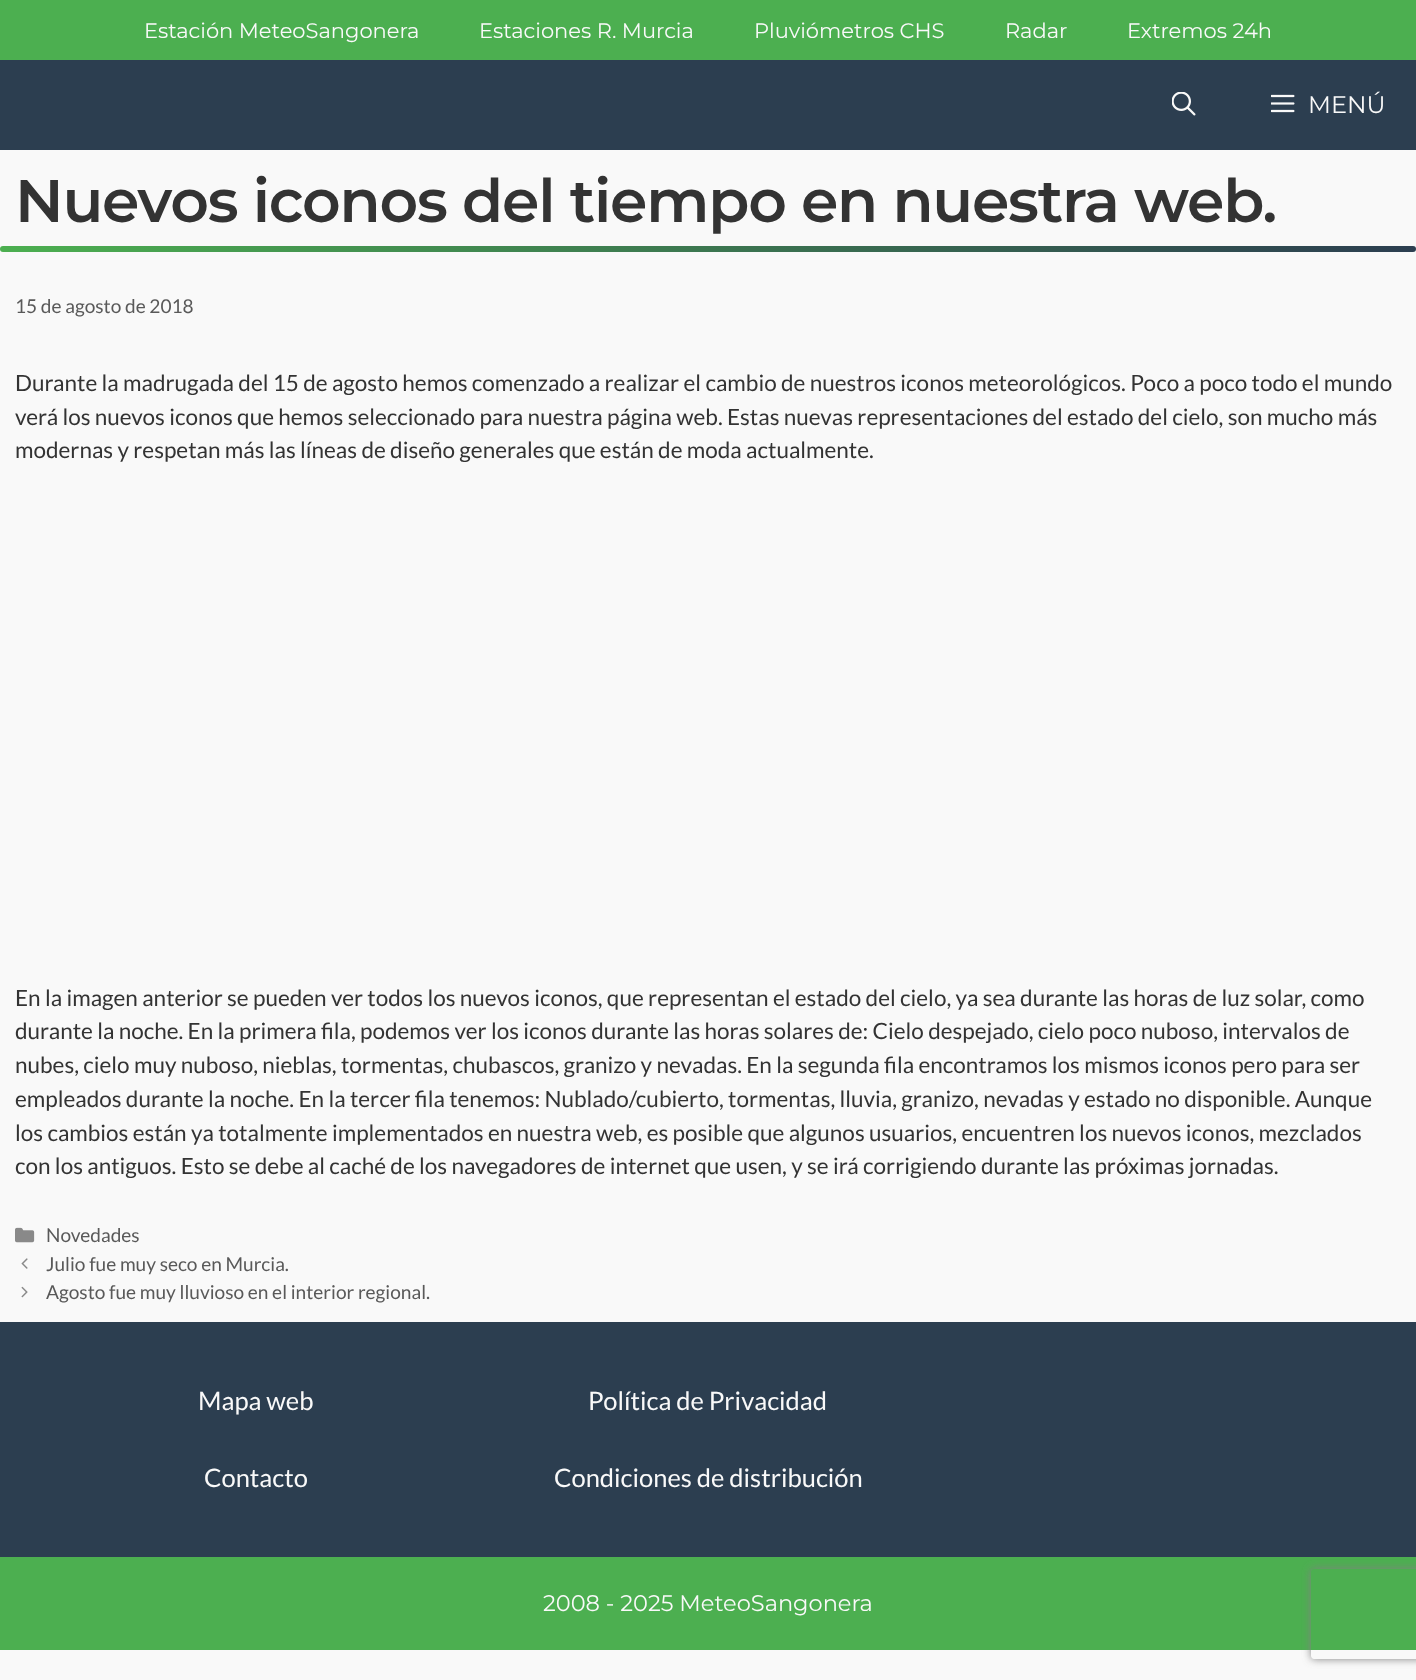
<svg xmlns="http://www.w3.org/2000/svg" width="1416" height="1680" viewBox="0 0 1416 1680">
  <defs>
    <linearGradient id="g1" gradientUnits="userSpaceOnUse" x1="0" y1="249" x2="1416" y2="249"><stop offset="0" stop-color="#4caf50"/><stop offset="1" stop-color="#2c3e50"/></linearGradient>
    <clipPath id="clip1"><path d="M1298 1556H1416V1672H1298ZM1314 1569H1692C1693.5 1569 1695 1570.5 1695 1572V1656C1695 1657.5 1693.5 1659 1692 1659H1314C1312.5 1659 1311 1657.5 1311 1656V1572C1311 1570.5 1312.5 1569 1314 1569Z" clip-rule="evenodd"/></clipPath>
    <filter id="blur1" x="-50%" y="-200%" width="200%" height="500%"><feGaussianBlur stdDeviation="4"/></filter>
  </defs>
  <rect width="100%" height="100%" fill="#f9f9f9"/>
  <rect x="0" y="0" width="1416" height="60" fill="#4caf50"/>
  <text x="144" y="38" font-family="Montserrat" font-size="21" fill="#f9f9f9">Estación MeteoSangonera</text>
  <text x="479" y="38" font-family="Montserrat" font-size="21" fill="#f9f9f9">Estaciones R. Murcia</text>
  <text x="754" y="38" font-family="Montserrat" font-size="21" fill="#f9f9f9">Pluviómetros CHS</text>
  <text x="1005" y="38" font-family="Montserrat" font-size="21" fill="#f9f9f9">Radar</text>
  <text x="1127" y="38" font-family="Montserrat" font-size="21" fill="#f9f9f9">Extremos 24h</text>
  <rect x="0" y="60" width="1416" height="90" fill="#2c3e50"/>
  <image x="1172" y="92" width="24" height="24" href="img1.png"/>
  <image x="1271" y="94" width="24" height="19" href="img2.png"/>
  <text x="1308" y="113" font-family="Montserrat" font-size="24" fill="#f9f9f9">MENÚ</text>
  <text x="15" y="222" font-family="Montserrat" font-size="60" font-weight="600" letter-spacing="-1.2" fill="#333333">Nuevos iconos del tiempo en nuestra web.</text>
  <rect x="0" y="246" width="1416" height="6" rx="3" fill="url(#g1)"/>
  <text x="15" y="313" font-family="Lato" font-size="19.1" fill="#595959">15 de agosto de 2018</text>
  <text x="15" y="391" font-family="Lato" font-size="22.5" fill="#333333">Durante la madrugada del 15 de agosto hemos comenzado a realizar el cambio de nuestros iconos meteorológicos. Poco a poco todo el mundo</text>
  <text x="15" y="425" font-family="Lato" font-size="22.5" fill="#333333">verá los nuevos iconos que hemos seleccionado para nuestra página web. Estas nuevas representaciones del estado del cielo, son mucho más</text>
  <text x="15" y="458" font-family="Lato" font-size="22.5" fill="#333333">modernas y respetan más las líneas de diseño generales que están de moda actualmente.</text>
  <text x="15" y="1006" font-family="Lato" font-size="22.5" fill="#333333">En la imagen anterior se pueden ver todos los nuevos iconos, que representan el estado del cielo, ya sea durante las horas de luz solar, como</text>
  <text x="15" y="1039" font-family="Lato" font-size="22.5" fill="#333333">durante la noche. En la primera fila, podemos ver los iconos durante las horas solares de: Cielo despejado, cielo poco nuboso, intervalos de</text>
  <text x="15" y="1073" font-family="Lato" font-size="22.5" fill="#333333">nubes, cielo muy nuboso, nieblas, tormentas, chubascos, granizo y nevadas. En la segunda fila encontramos los mismos iconos pero para ser</text>
  <text x="15" y="1107" font-family="Lato" font-size="22.5" fill="#333333">empleados durante la noche. En la tercer fila tenemos: Nublado/cubierto, tormentas, lluvia, granizo, nevadas y estado no disponible. Aunque</text>
  <text x="15" y="1141" font-family="Lato" font-size="22.5" fill="#333333">los cambios están ya totalmente implementados en nuestra web, es posible que algunos usuarios, encuentren los nuevos iconos, mezclados</text>
  <text x="15" y="1174" font-family="Lato" font-size="22.5" fill="#333333">con los antiguos. Esto se debe al caché de los navegadores de internet que usen, y se irá corrigiendo durante las próximas jornadas.</text>
  <image x="15" y="1227" width="20" height="16" href="img3.png"/>
  <text x="46" y="1242" font-family="Lato" font-size="19.1" fill="#595959">Novedades</text>
  <image x="21" y="1258" width="7" height="11" href="img4.png"/>
  <text x="46" y="1271" font-family="Lato" font-size="19.1" fill="#595959">Julio fue muy seco en Murcia.</text>
  <image x="21" y="1286" width="7" height="12" href="img5.png"/>
  <text x="46" y="1299" font-family="Lato" font-size="19.1" fill="#595959">Agosto fue muy lluvioso en el interior regional.</text>
  <rect x="0" y="1322" width="1416" height="235" fill="#2c3e50"/>
  <text x="198" y="1410" font-family="Lato" font-size="25.5" fill="#f9f9f9">Mapa web</text>
  <text x="204" y="1487" font-family="Lato" font-size="25.5" fill="#f9f9f9">Contacto</text>
  <text x="588" y="1410" font-family="Lato" font-size="25.5" fill="#f9f9f9">Política de Privacidad</text>
  <text x="554" y="1487" font-family="Lato" font-size="25.5" fill="#f9f9f9">Condiciones de distribución</text>
  <rect x="0" y="1557" width="1416" height="93" fill="#4caf50"/>
  <text x="543" y="1611" font-family="Montserrat" font-size="22.5" fill="#f9f9f9">2008 - 2025 MeteoSangonera</text>
  <g clip-path="url(#clip1)">
    <rect x="1311" y="1569" width="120" height="90" rx="3" fill="#808080" filter="url(#blur1)"/>
  </g>
</svg>
